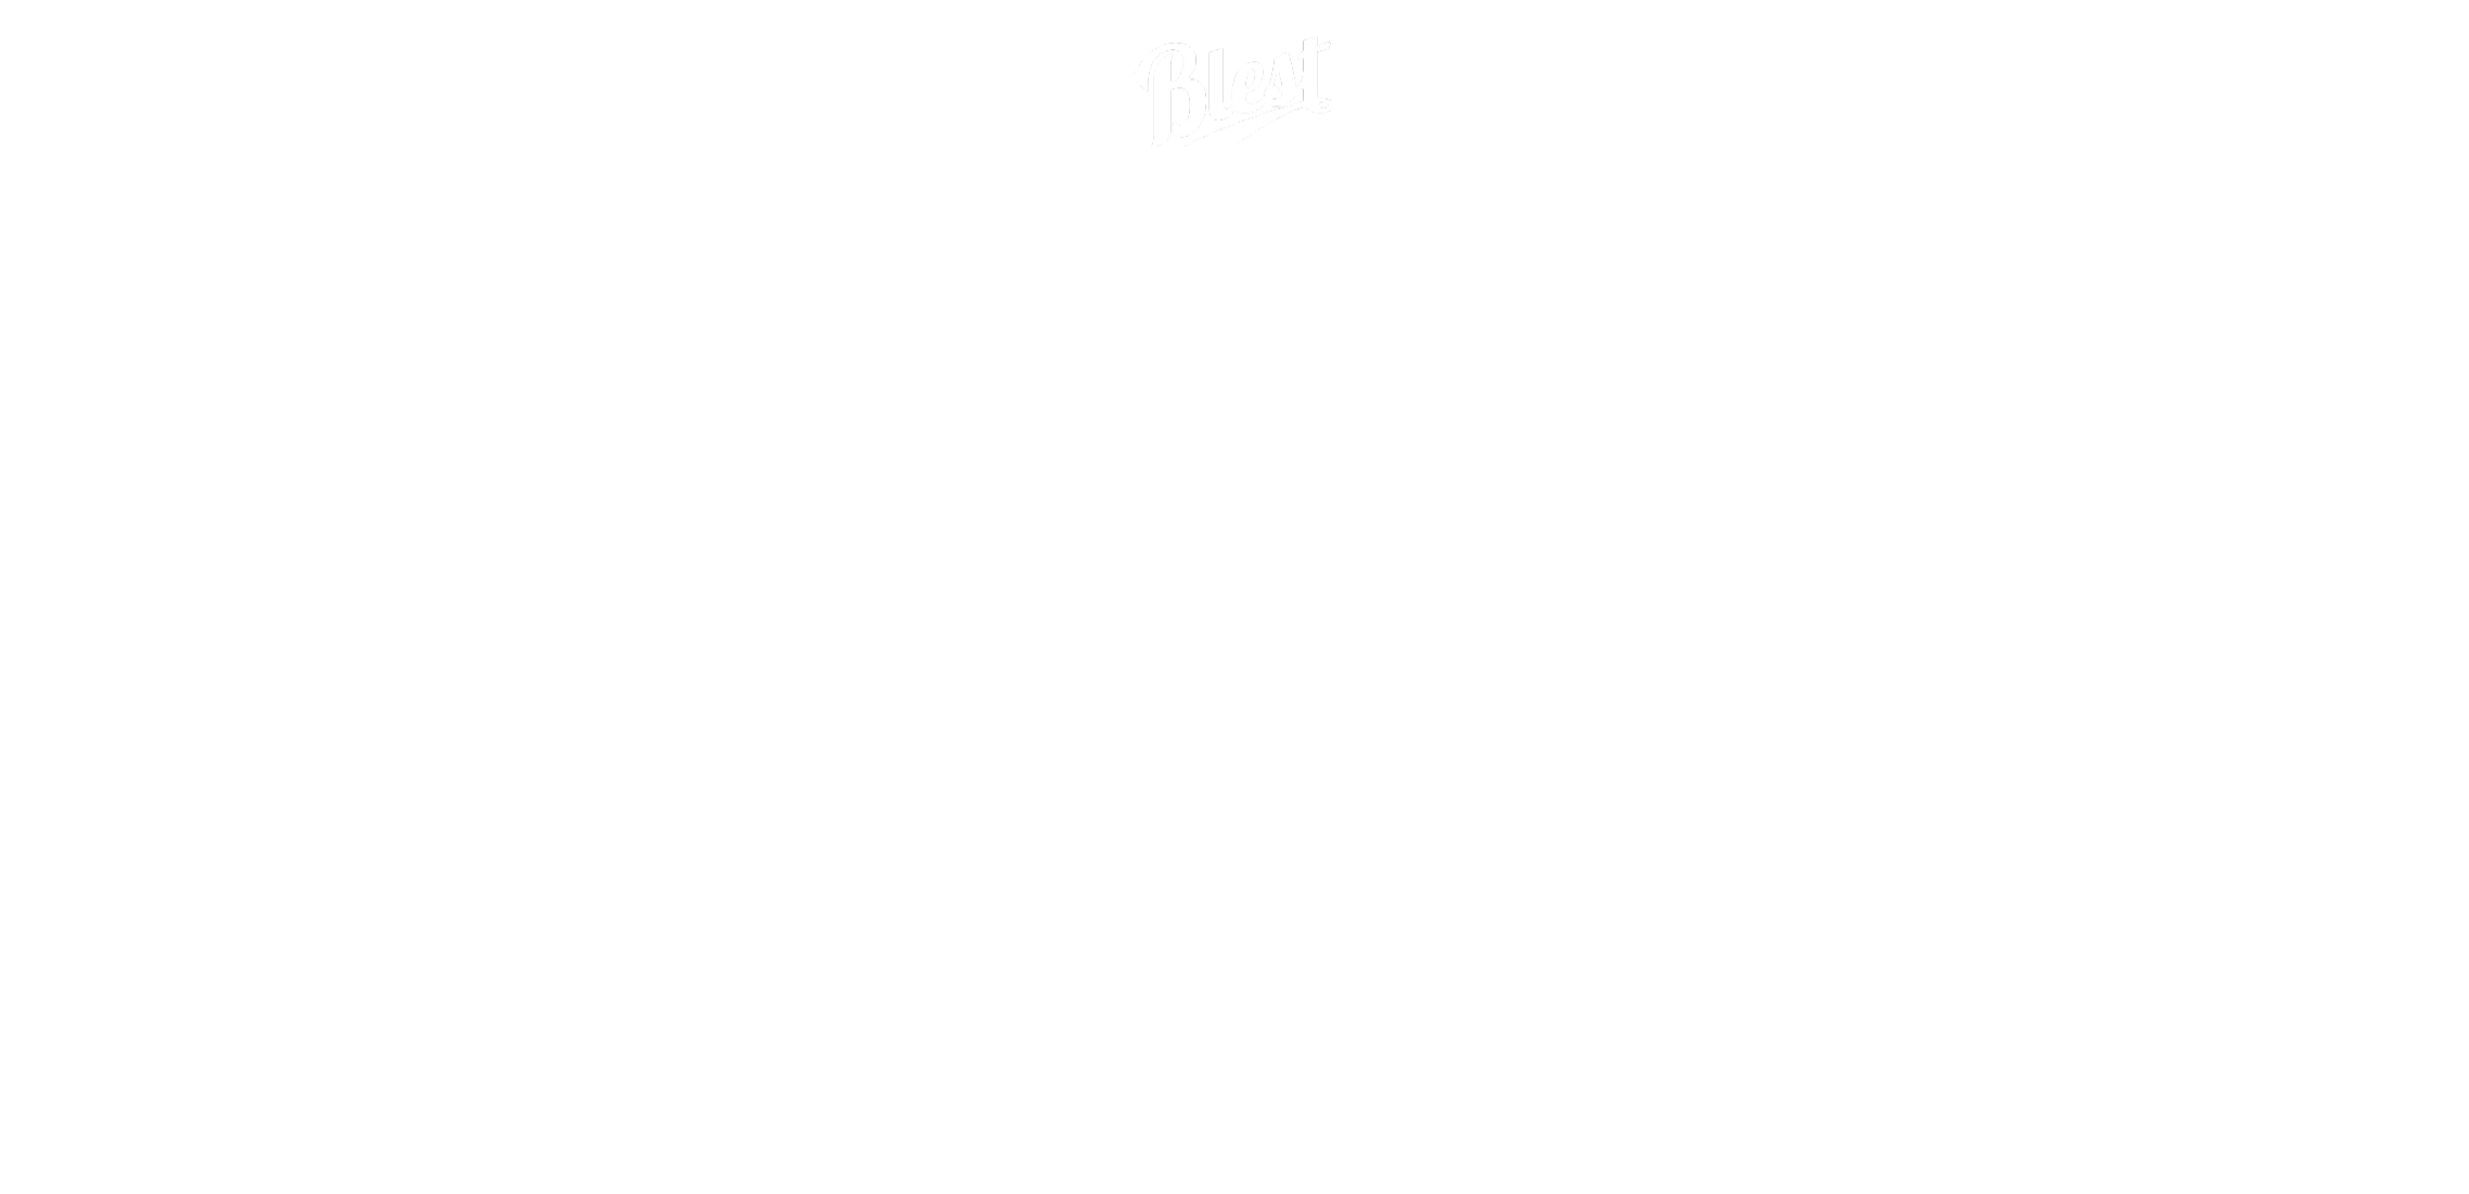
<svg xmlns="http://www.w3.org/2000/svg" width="2469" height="1194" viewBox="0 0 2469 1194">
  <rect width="100%" height="100%" fill="#ffffff"/>
  <image x="1133" y="36" width="199" height="111" href="img1.png"/>
</svg>
